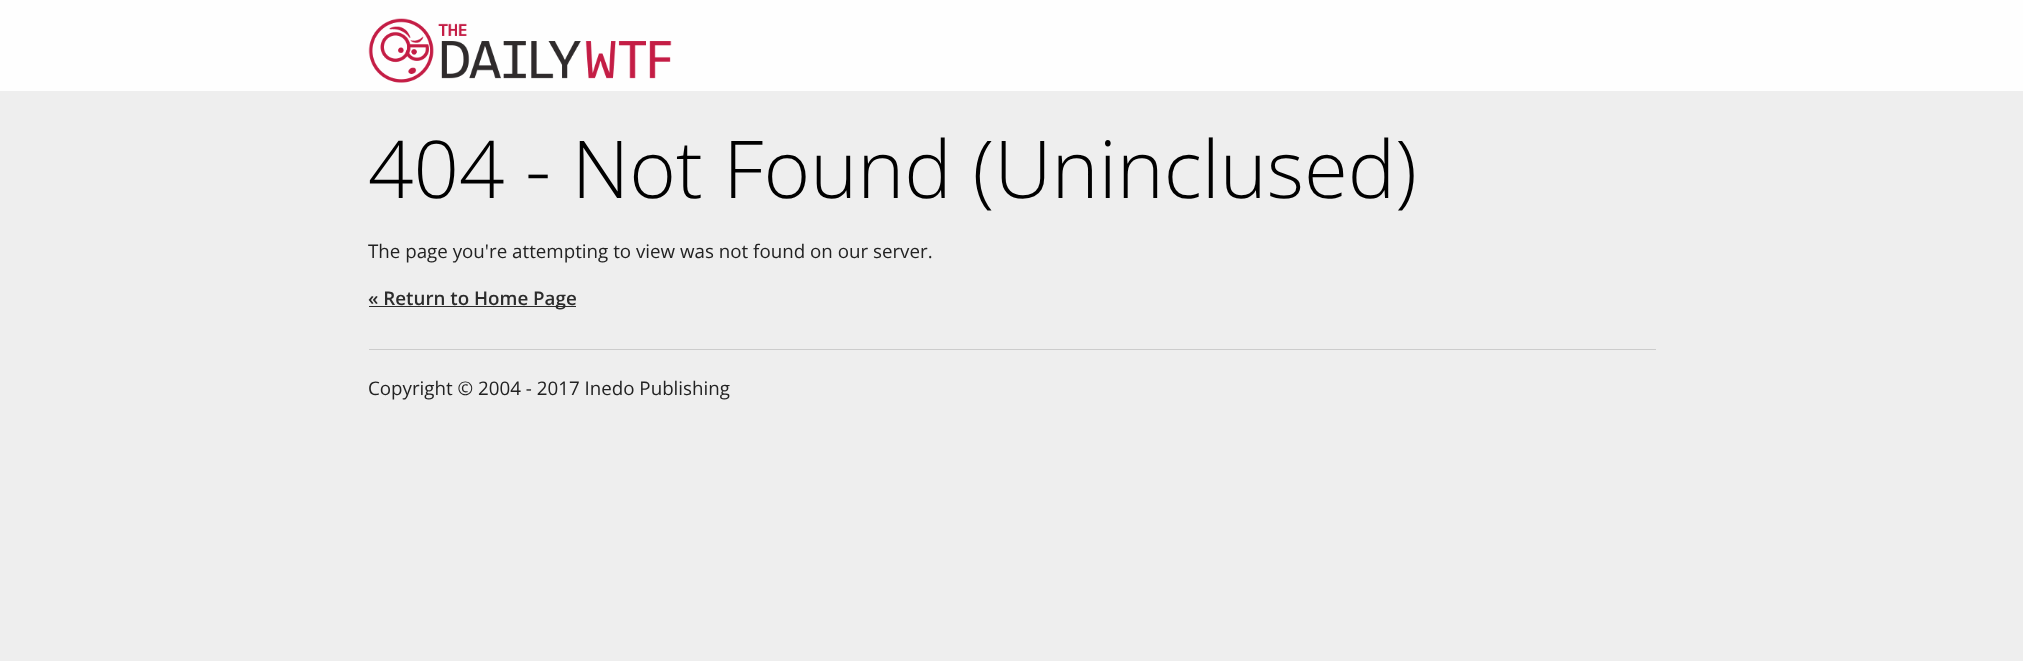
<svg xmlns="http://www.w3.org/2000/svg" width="2023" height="661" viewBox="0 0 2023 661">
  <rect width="100%" height="100%" fill="#eeeeee"/>
  <rect x="0" y="0" width="2023" height="91" fill="#fefefe"/>
  <image x="368" y="18" width="304" height="65" href="img1.png"/>
  <text x="368" y="198" font-family="Open Sans" font-size="79.75" font-weight="300" fill="#000000">404 - Not Found (Uninclused)</text>
  <text x="368" y="258" font-family="Open Sans" font-size="18.75" fill="#222222">The page you're attempting to view was not found on our server.</text>
  <rect x="369" y="306" width="207" height="1" fill="#2c2c2c"/>
  <text x="368" y="305" font-family="Open Sans" font-size="18.75" font-weight="600" fill="#2c2c2c">« Return to Home Page</text>
  <rect x="369" y="349" width="1287" height="1" fill="#cccccc"/>
  <text x="368" y="395" font-family="Open Sans" font-size="18.75" fill="#222222">Copyright © 2004 - 2017 Inedo Publishing</text>
</svg>
